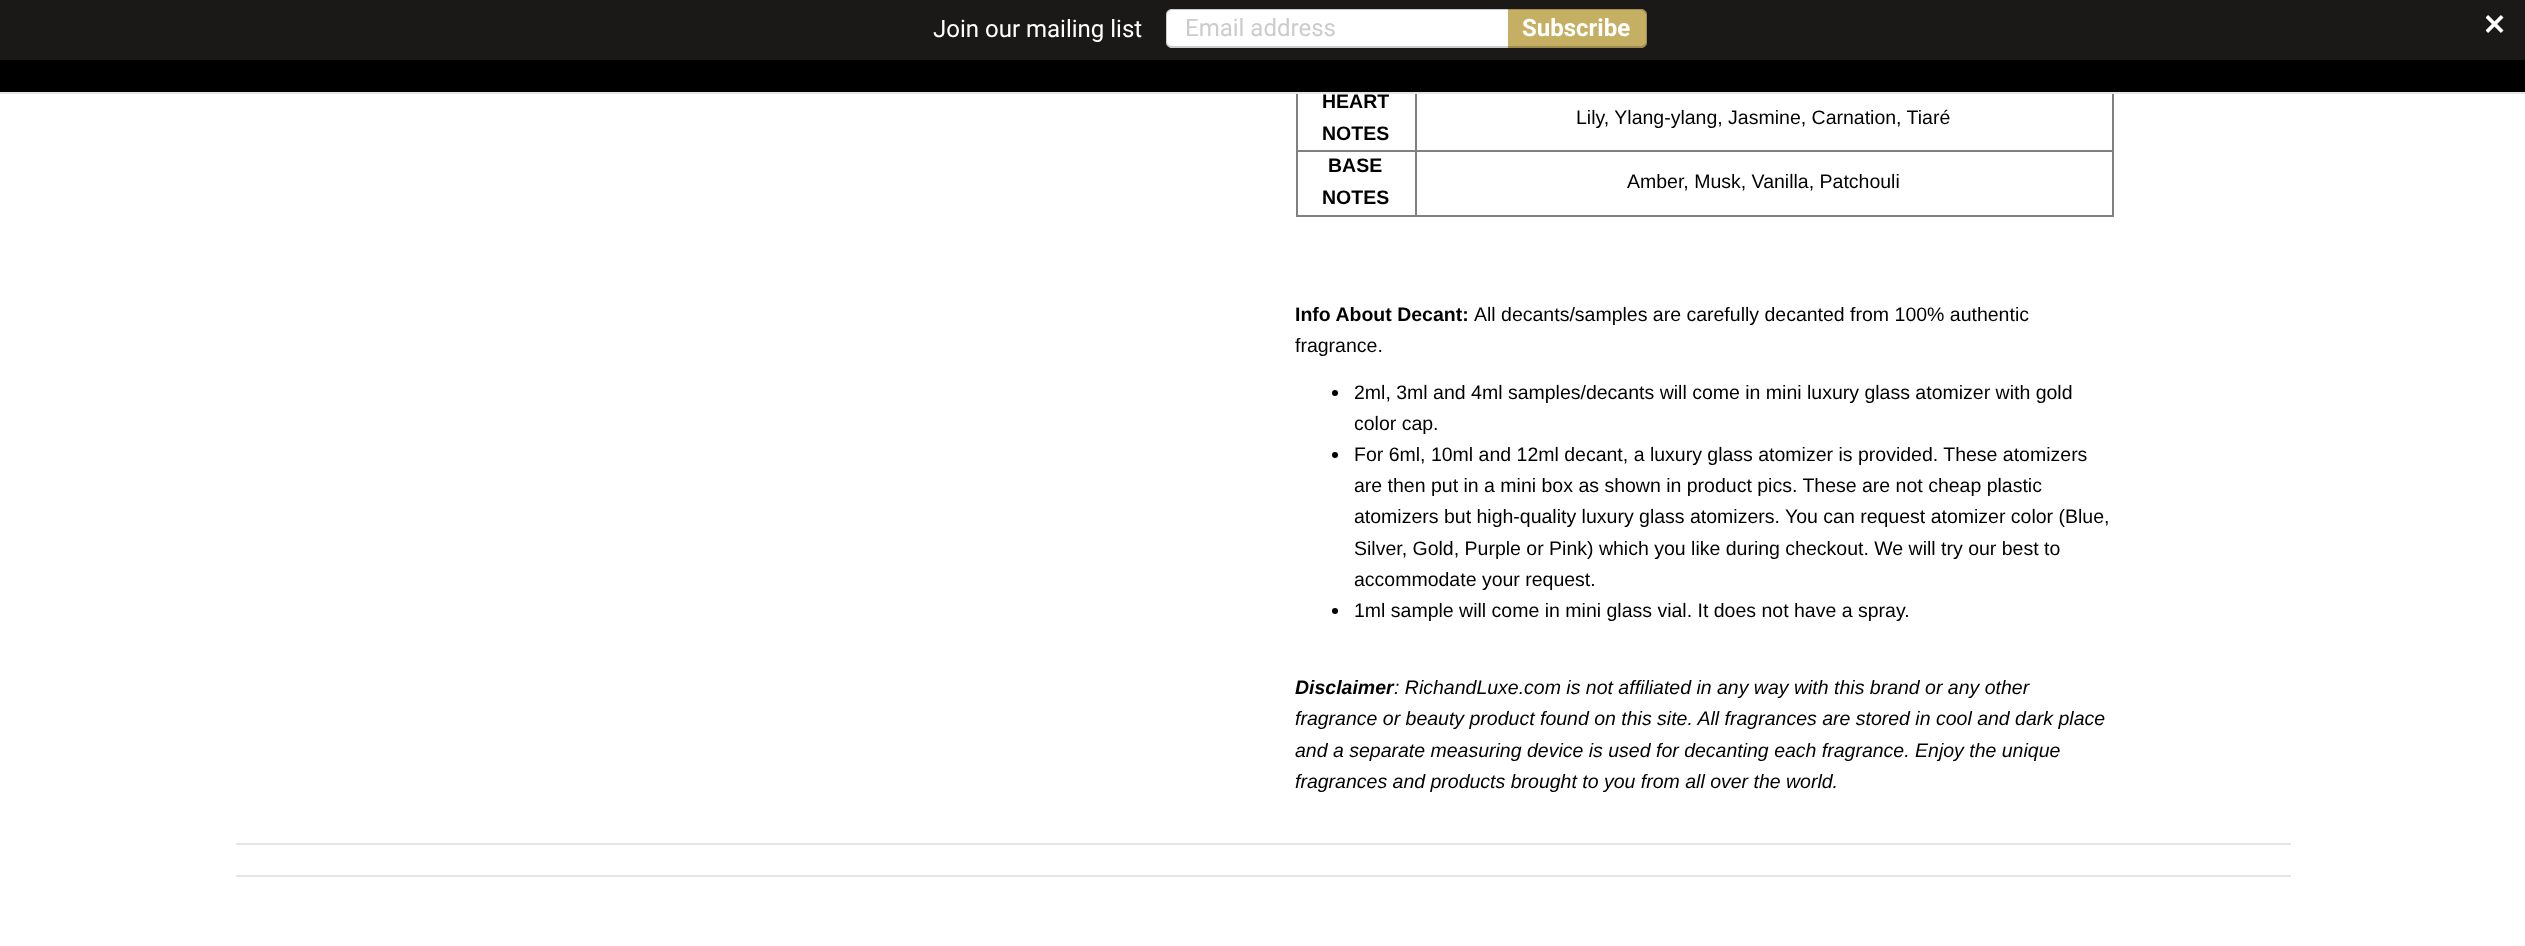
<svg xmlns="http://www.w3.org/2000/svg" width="2525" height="946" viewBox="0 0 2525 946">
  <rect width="100%" height="100%" fill="#ffffff"/>
  <rect x="0" y="0" width="2525" height="60" fill="#1b1818"/>
  <text x="933" y="37" font-family="Roboto" font-size="24" fill="#ffffff">Join our mailing list</text>
  <path d="M1172 9H1508V48H1172C1168.5 48 1166 45.5 1166 42V15C1166 11.5 1168.5 9 1172 9Z" fill="#ffffff"/>
  <path d="M1172 9H1508V48H1172C1168 48 1166 45 1166 42V15C1166 12 1168 9 1172 9ZM1172 10H1508V46H1172C1169 46 1167 44 1167 42V15C1167 13 1169 10 1172 10Z" fill="#000000" fill-opacity="0.2" fill-rule="evenodd"/>
  <text x="1185" y="36" font-family="Roboto" font-size="24" fill="#cccccc">Email address</text>
  <path d="M1508 9H1641C1644.5 9 1647 11.5 1647 15V42C1647 45.5 1644.5 48 1641 48H1508Z" fill="#c4af62"/>
  <path d="M1508 9H1641C1644 9 1647 12 1647 15V42C1647 45 1644 48 1641 48H1508ZM1508 10H1641C1643 10 1646 13 1646 15V42C1646 44 1643 46 1641 46H1508Z" fill="#000000" fill-opacity="0.2" fill-rule="evenodd"/>
  <text x="1522" y="36" font-family="Roboto" font-size="24" font-weight="bold" fill="#ffffff">Subscribe</text>
  <image x="2486" y="15" width="18" height="18" href="img1.png"/>
  <rect x="2112" y="94" width="2" height="122" fill="#808080"/>
  <rect x="1296" y="215" width="818" height="2" fill="#808080"/>
  <rect x="1296" y="94" width="2" height="122" fill="#808080"/>
  <rect x="1415" y="150" width="699" height="2" fill="#808080"/>
  <rect x="1415" y="150" width="2" height="66" fill="#808080"/>
  <rect x="1296" y="150" width="120" height="2" fill="#808080"/>
  <rect x="1415" y="86" width="2" height="66" fill="#808080"/>
  <rect x="0" y="60" width="2525" height="32" fill="#000000"/>
  <rect x="0" y="92" width="2525" height="2" fill="#e5e5e5"/>
  <text x="1322" y="108" font-family="Liberation Sans" font-size="19.5" font-weight="bold" fill="#000000">HEART</text>
  <text x="1322" y="140" font-family="Liberation Sans" font-size="19.5" font-weight="bold" fill="#000000">NOTES</text>
  <text x="1576" y="124" font-family="Liberation Sans" font-size="19.5" fill="#000000">Lily, Ylang-ylang, Jasmine, Carnation, Tiaré</text>
  <text x="1328" y="172" font-family="Liberation Sans" font-size="19.5" font-weight="bold" fill="#000000">BASE</text>
  <text x="1322" y="204" font-family="Liberation Sans" font-size="19.5" font-weight="bold" fill="#000000">NOTES</text>
  <text x="1627" y="188" font-family="Liberation Sans" font-size="19.5" fill="#000000">Amber, Musk, Vanilla, Patchouli</text>
  <text x="1295" y="321" font-family="Liberation Sans" font-size="19.5" font-weight="bold" fill="#000000">Info About Decant:</text>
  <text x="1474" y="321" font-family="Liberation Sans" font-size="19.5" fill="#000000">All decants/samples are carefully decanted from 100% authentic</text>
  <text x="1295" y="352" font-family="Liberation Sans" font-size="19.5" fill="#000000">fragrance.</text>
  <circle cx="1335" cy="393" r="3" fill="#000000"/>
  <text x="1354" y="399" font-family="Liberation Sans" font-size="19.5" fill="#000000">2ml, 3ml and 4ml samples/decants will come in mini luxury glass atomizer with gold</text>
  <text x="1354" y="430" font-family="Liberation Sans" font-size="19.5" fill="#000000">color cap.</text>
  <circle cx="1335" cy="455" r="3" fill="#000000"/>
  <text x="1354" y="461" font-family="Liberation Sans" font-size="19.5" fill="#000000">For 6ml, 10ml and 12ml decant, a luxury glass atomizer is provided. These atomizers</text>
  <text x="1354" y="492" font-family="Liberation Sans" font-size="19.5" fill="#000000">are then put in a mini box as shown in product pics. These are not cheap plastic</text>
  <text x="1354" y="523" font-family="Liberation Sans" font-size="19.5" fill="#000000">atomizers but high-quality luxury glass atomizers. You can request atomizer color (Blue,</text>
  <text x="1354" y="555" font-family="Liberation Sans" font-size="19.5" fill="#000000">Silver, Gold, Purple or Pink) which you like during checkout. We will try our best to</text>
  <text x="1354" y="586" font-family="Liberation Sans" font-size="19.5" fill="#000000">accommodate your request.</text>
  <circle cx="1335" cy="611" r="3" fill="#000000"/>
  <text x="1354" y="617" font-family="Liberation Sans" font-size="19.5" fill="#000000">1ml sample will come in mini glass vial. It does not have a spray.</text>
  <text x="1295" y="694" font-family="Liberation Sans" font-size="19.5" font-weight="bold" font-style="italic" fill="#000000">Disclaimer</text>
  <text x="1394" y="694" font-family="Liberation Sans" font-size="19.5" font-style="italic" fill="#000000">: RichandLuxe.com is not affiliated in any way with this brand or any other</text>
  <text x="1295" y="725" font-family="Liberation Sans" font-size="19.5" font-style="italic" fill="#000000">fragrance or beauty product found on this site. All fragrances are stored in cool and dark place</text>
  <text x="1295" y="757" font-family="Liberation Sans" font-size="19.5" font-style="italic" fill="#000000">and a separate measuring device is used for decanting each fragrance. Enjoy the unique</text>
  <text x="1295" y="788" font-family="Liberation Sans" font-size="19.5" font-style="italic" fill="#000000">fragrances and products brought to you from all over the world.</text>
  <rect x="236" y="843" width="2055" height="2" fill="#e5e5e5"/>
  <rect x="236" y="875" width="2055" height="2" fill="#e5e5e5"/>
</svg>
